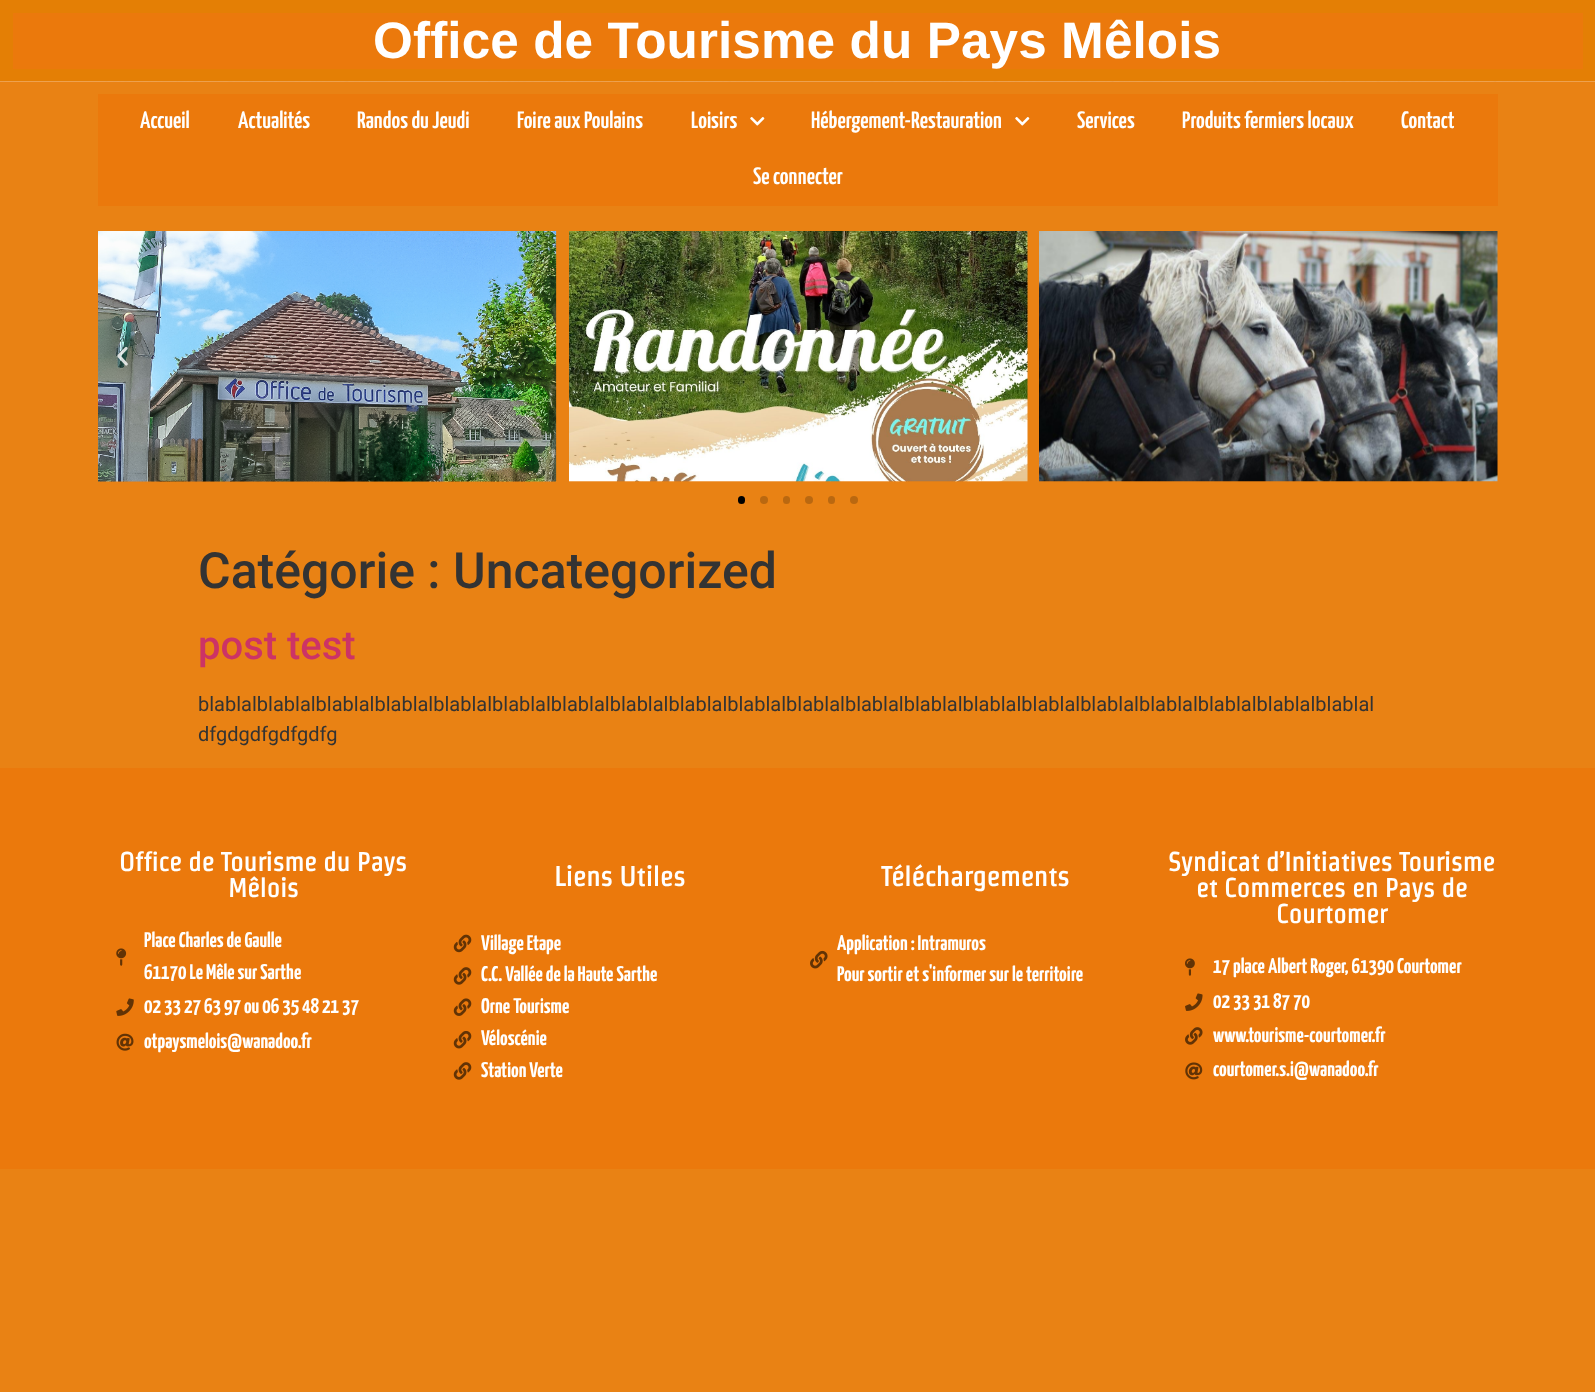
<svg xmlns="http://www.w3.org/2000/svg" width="1595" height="1392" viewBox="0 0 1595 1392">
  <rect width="100%" height="100%" fill="#e98214"/>
  <image x="0" y="81" width="1595" height="1" href="img1.png"/>
  <rect x="0" y="0" width="1595" height="81" fill="#e47f05"/>
  <rect x="13" y="13" width="1570" height="56" fill="#eb790c"/>
  <text x="373" y="58" font-family="Liberation Sans" font-size="51.25" font-weight="bold" letter-spacing="0.1" fill="#ffffff">Office de Tourisme du Pays Mêlois</text>
  <rect x="98" y="94" width="1400" height="112" fill="#eb790c"/>
  <text x="140" y="128" font-family="Yanone Kaffeesatz" font-size="23.75" font-weight="600" fill="#ffffff">Accueil</text>
  <text x="238" y="128" font-family="Yanone Kaffeesatz" font-size="23.75" font-weight="600" fill="#ffffff">Actualités</text>
  <text x="357" y="128" font-family="Yanone Kaffeesatz" font-size="23.75" font-weight="600" fill="#ffffff">Randos du Jeudi</text>
  <text x="517" y="128" font-family="Yanone Kaffeesatz" font-size="23.75" font-weight="600" fill="#ffffff">Foire aux Poulains</text>
  <text x="691" y="128" font-family="Yanone Kaffeesatz" font-size="23.75" font-weight="600" fill="#ffffff">Loisirs</text>
  <image x="750" y="117" width="15" height="9" href="img2.png"/>
  <text x="811" y="128" font-family="Yanone Kaffeesatz" font-size="23.75" font-weight="600" fill="#ffffff">Hébergement-Restauration</text>
  <image x="1015" y="117" width="15" height="9" href="img2.png"/>
  <text x="1077" y="128" font-family="Yanone Kaffeesatz" font-size="23.75" font-weight="600" fill="#ffffff">Services</text>
  <text x="1182" y="128" font-family="Yanone Kaffeesatz" font-size="23.75" font-weight="600" fill="#ffffff">Produits fermiers locaux</text>
  <text x="1401" y="128" font-family="Yanone Kaffeesatz" font-size="23.75" font-weight="600" fill="#ffffff">Contact</text>
  <text x="753" y="184" font-family="Yanone Kaffeesatz" font-size="23.75" font-weight="600" fill="#ffffff">Se connecter</text>
  <image x="98" y="231" width="459" height="251" href="img3.png"/>
  <image x="569" y="231" width="459" height="251" href="img4.png"/>
  <image x="1039" y="231" width="459" height="251" href="img5.png"/>
  <image x="117" y="346" width="11" height="20" href="img6.png"/>
  <image x="1467" y="347" width="11" height="19" href="img7.png"/>
  <rect x="738" y="496" width="7" height="8" rx="3.5" fill="#000000"/>
  <circle cx="764" cy="500" r="4" fill="#ba6810"/>
  <rect x="783" y="496" width="7" height="8" rx="3.5" fill="#ba6810"/>
  <circle cx="809" cy="500" r="4" fill="#ba6810"/>
  <rect x="828" y="496" width="7" height="8" rx="3.5" fill="#ba6810"/>
  <circle cx="854" cy="500" r="4" fill="#ba6810"/>
  <text x="198" y="588" font-family="Roboto" font-size="50" font-weight="500" fill="#333333">Catégorie : Uncategorized</text>
  <text x="198" y="659" font-family="Roboto" font-size="40" font-weight="500" fill="#cc3366">post test</text>
  <text x="198" y="711" font-family="Roboto" font-size="20" fill="#333333">blablalblablalblablalblablalblablalblablalblablalblablalblablalblablalblablalblablalblablalblablalblablalblablalblablalblablalblablalblablal</text>
  <text x="198" y="741" font-family="Roboto" font-size="20" fill="#333333">dfgdgdfgdfgdfg</text>
  <rect x="0" y="768" width="1595" height="401" fill="#eb790c"/>
  <text x="119" y="871" font-family="Strait" font-size="26.25" font-weight="bold" fill="#ffffff">Office de Tourisme du Pays</text>
  <text x="228" y="897" font-family="Strait" font-size="26.25" font-weight="bold" fill="#ffffff">Mêlois</text>
  <image x="116" y="948" width="11" height="18" href="img8.png"/>
  <text x="144" y="947" font-family="Yanone Kaffeesatz" font-size="21.25" font-weight="bold" fill="#ffffff">Place Charles de Gaulle</text>
  <text x="144" y="979" font-family="Yanone Kaffeesatz" font-size="21.25" font-weight="bold" fill="#ffffff">61170 Le Mêle sur Sarthe</text>
  <image x="116" y="998" width="18" height="18" href="img9.png"/>
  <text x="144" y="1013" font-family="Yanone Kaffeesatz" font-size="21.25" font-weight="bold" fill="#ffffff">02 33 27 63 97 ou 06 35 48 21 37</text>
  <image x="116" y="1033" width="18" height="18" href="img10.png"/>
  <text x="144" y="1048" font-family="Yanone Kaffeesatz" font-size="21.25" font-weight="bold" fill="#ffffff">otpaysmelois@wanadoo.fr</text>
  <text x="554" y="886" font-family="Strait" font-size="27.5" font-weight="bold" fill="#ffffff">Liens Utiles</text>
  <image x="453" y="934" width="19" height="19" href="img11.png"/>
  <text x="481" y="950" font-family="Yanone Kaffeesatz" font-size="21.25" font-weight="bold" fill="#ffffff">Village Etape</text>
  <image x="453" y="967" width="19" height="18" href="img12.png"/>
  <text x="481" y="981" font-family="Yanone Kaffeesatz" font-size="21.25" font-weight="bold" fill="#ffffff">C.C. Vallée de la Haute Sarthe</text>
  <image x="453" y="998" width="19" height="18" href="img13.png"/>
  <text x="481" y="1013" font-family="Yanone Kaffeesatz" font-size="21.25" font-weight="bold" fill="#ffffff">Orne Tourisme</text>
  <image x="453" y="1031" width="19" height="18" href="img14.png"/>
  <text x="481" y="1045" font-family="Yanone Kaffeesatz" font-size="21.25" font-weight="bold" fill="#ffffff">Véloscénie</text>
  <image x="453" y="1062" width="19" height="18" href="img12.png"/>
  <text x="481" y="1077" font-family="Yanone Kaffeesatz" font-size="21.25" font-weight="bold" fill="#ffffff">Station Verte</text>
  <text x="881" y="886" font-family="Strait" font-size="27.5" font-weight="bold" fill="#ffffff">Téléchargements</text>
  <image x="810" y="950" width="18" height="19" href="img15.png"/>
  <text x="837" y="950" font-family="Yanone Kaffeesatz" font-size="21.25" font-weight="bold" fill="#ffffff">Application : Intramuros</text>
  <text x="837" y="981" font-family="Yanone Kaffeesatz" font-size="21.25" font-weight="bold" fill="#ffffff">Pour sortir et s'informer sur le territoire</text>
  <text x="1168" y="871" font-family="Strait" font-size="26.25" font-weight="bold" fill="#ffffff">Syndicat d’Initiatives Tourisme</text>
  <text x="1196" y="897" font-family="Strait" font-size="26.25" font-weight="bold" fill="#ffffff">et Commerces en Pays de</text>
  <text x="1276" y="923" font-family="Strait" font-size="26.25" font-weight="bold" fill="#ffffff">Courtomer</text>
  <image x="1185" y="958" width="10" height="18" href="img16.png"/>
  <text x="1213" y="973" font-family="Yanone Kaffeesatz" font-size="21.25" font-weight="bold" fill="#ffffff">17 place Albert Roger, 61390 Courtomer</text>
  <image x="1185" y="993" width="18" height="18" href="img17.png"/>
  <text x="1213" y="1008" font-family="Yanone Kaffeesatz" font-size="21.25" font-weight="bold" fill="#ffffff">02 33 31 87 70</text>
  <image x="1185" y="1027" width="18" height="18" href="img18.png"/>
  <text x="1213" y="1042" font-family="Yanone Kaffeesatz" font-size="21.25" font-weight="bold" fill="#ffffff">www.tourisme-courtomer.fr</text>
  <image x="1185" y="1062" width="18" height="18" href="img19.png"/>
  <text x="1213" y="1076" font-family="Yanone Kaffeesatz" font-size="21.25" font-weight="bold" fill="#ffffff">courtomer.s.i@wanadoo.fr</text>
</svg>
